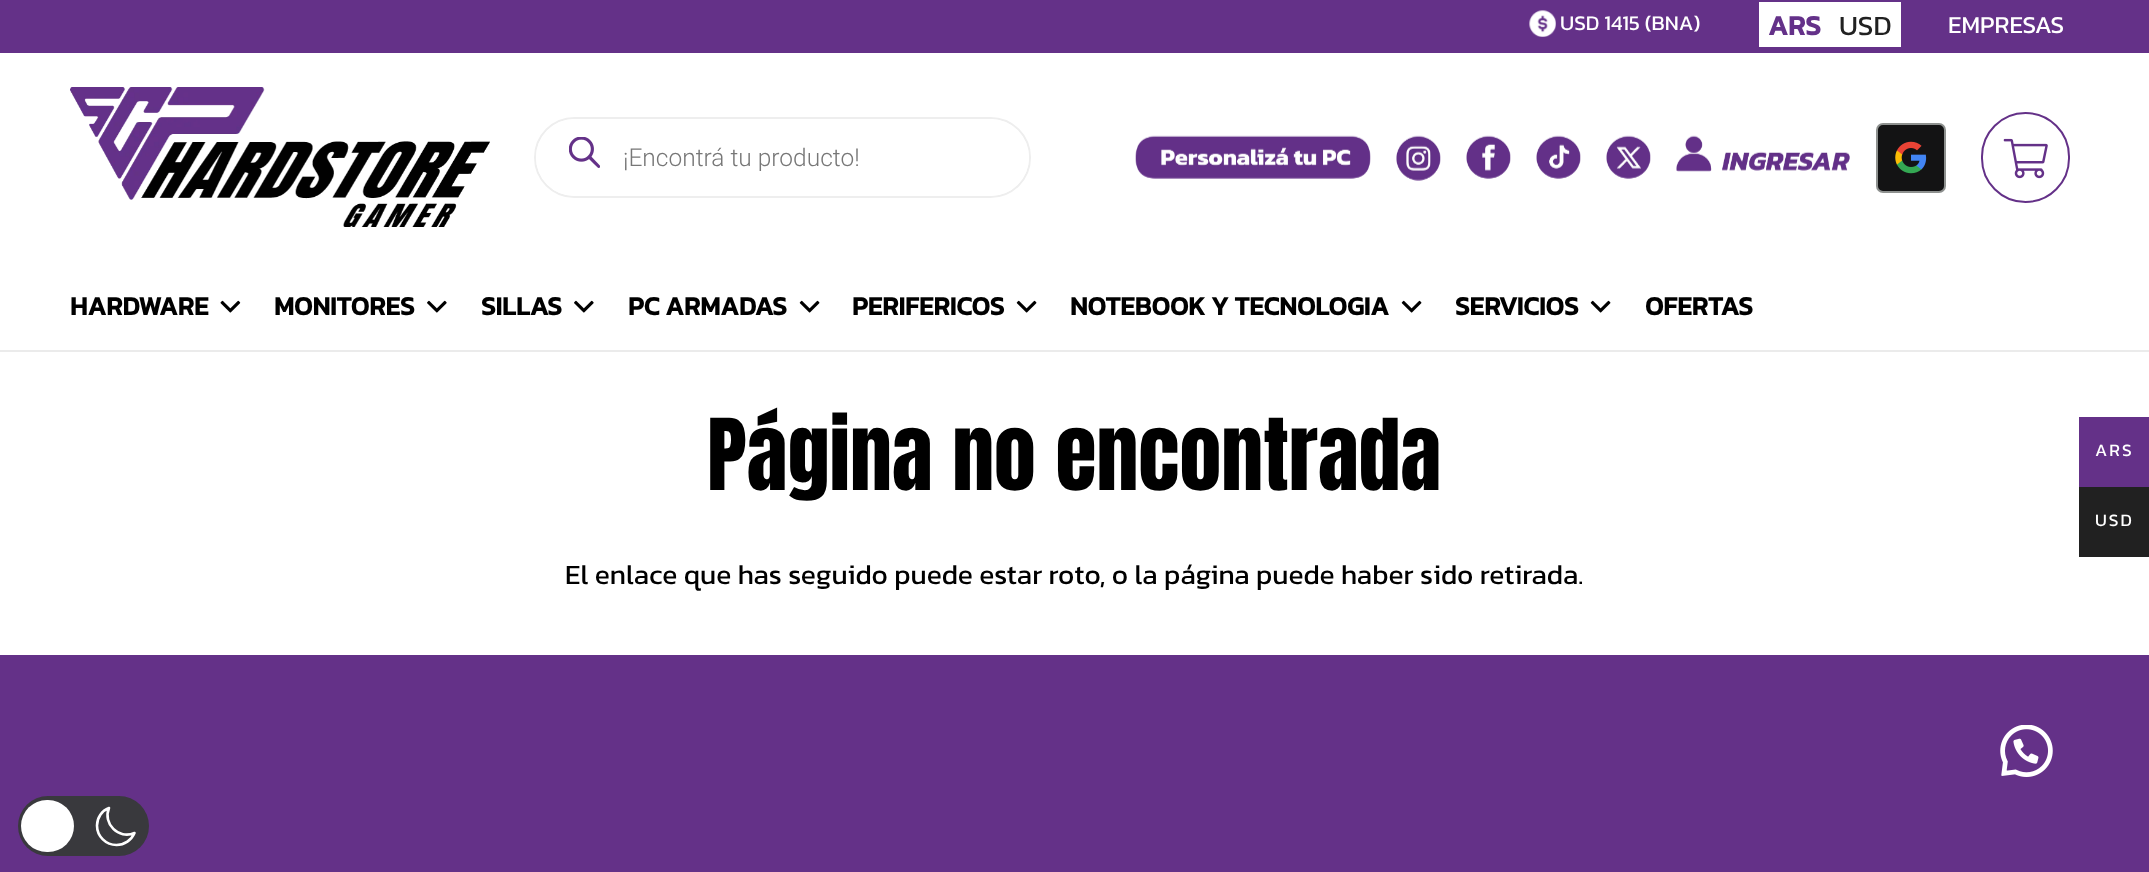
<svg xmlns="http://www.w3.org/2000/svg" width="2149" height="872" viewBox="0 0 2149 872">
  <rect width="100%" height="100%" fill="#ffffff"/>
  <rect x="0" y="0" width="2149" height="53" fill="#643188"/>
  <image x="1529" y="10" width="27" height="27" href="img1.png"/>
  <text x="1560" y="30" font-family="Kanit" font-size="21" fill="#ffffff">USD 1415 (BNA)</text>
  <rect x="1759" y="2" width="142" height="45" fill="#ffffff"/>
  <text x="1768" y="35" font-family="Kanit" font-size="28" font-weight="bold" fill="#643189">ARS</text>
  <text x="1839" y="35" font-family="Kanit" font-size="28" fill="#212121">USD</text>
  <text x="1948" y="33" font-family="Kanit" font-size="24.5" fill="#ffffff">EMPRESAS</text>
  <image x="70" y="87" width="420" height="140" href="img2.png"/>
  <rect x="535" y="118" width="495" height="79" rx="39.5" fill="none" stroke="#eeeeee" stroke-width="2"/>
  <rect x="536" y="119" width="493" height="77" rx="38.5" fill="#ffffff"/>
  <image x="569" y="137" width="31" height="31" href="img3.png"/>
  <text x="623" y="166" font-family="Roboto" font-size="24.5" font-weight="300" fill="#777777">¡Encontrá tu producto!</text>
  <image x="1135" y="135" width="236" height="44" href="img4.png"/>
  <image x="1396" y="135" width="45" height="46" href="img5.png"/>
  <image x="1466" y="135" width="45" height="44" href="img6.png"/>
  <image x="1536" y="135" width="45" height="44" href="img7.png"/>
  <image x="1606" y="135" width="45" height="44" href="img8.png"/>
  <image x="1676" y="135" width="174" height="37" href="img9.png"/>
  <rect x="1877" y="124" width="68" height="68" rx="6" fill="#131314" stroke="#8e918f" stroke-width="2"/>
  <image x="1895" y="141" width="32" height="33" href="img10.png"/>
  <rect x="1982" y="113" width="87" height="89" rx="43.5" fill="none" stroke="#643188" stroke-width="2"/>
  <image x="2003" y="138" width="45" height="41" href="img11.png"/>
  <rect x="0" y="350" width="2149" height="2" fill="#ebebeb"/>
  <text x="70" y="315" font-family="Kanit" font-size="26.25" font-weight="bold" fill="#000000">HARDWARE</text>
  <image x="220" y="300" width="21" height="13" href="img12.png"/>
  <text x="274" y="315" font-family="Kanit" font-size="26.25" font-weight="bold" fill="#000000">MONITORES</text>
  <image x="427" y="300" width="20" height="13" href="img13.png"/>
  <text x="481" y="315" font-family="Kanit" font-size="26.25" font-weight="bold" fill="#000000">SILLAS</text>
  <image x="574" y="300" width="20" height="13" href="img13.png"/>
  <text x="628" y="315" font-family="Kanit" font-size="26.25" font-weight="bold" fill="#000000">PC ARMADAS</text>
  <image x="799" y="300" width="21" height="13" href="img14.png"/>
  <text x="852" y="315" font-family="Kanit" font-size="26.25" font-weight="bold" fill="#000000">PERIFERICOS</text>
  <image x="1016" y="300" width="21" height="13" href="img14.png"/>
  <text x="1070" y="315" font-family="Kanit" font-size="26.25" font-weight="bold" fill="#000000">NOTEBOOK Y TECNOLOGIA</text>
  <image x="1401" y="300" width="21" height="13" href="img14.png"/>
  <text x="1455" y="315" font-family="Kanit" font-size="26.25" font-weight="bold" fill="#000000">SERVICIOS</text>
  <image x="1590" y="300" width="21" height="13" href="img14.png"/>
  <text x="1645" y="315" font-family="Kanit" font-size="26.25" font-weight="bold" fill="#000000">OFERTAS</text>
  <text x="707" y="490" font-family="Anton" font-size="84" fill="#000000">Página no encontrada</text>
  <text x="565" y="584" font-family="Kanit" font-size="28" fill="#000000">El enlace que has seguido puede estar roto, o la página puede haber sido retirada.</text>
  <rect x="2079" y="417" width="70" height="70" fill="#643188"/>
  <text x="2095" y="456" font-family="Kanit" font-size="17.5" letter-spacing="2" fill="#ffffff">ARS</text>
  <rect x="2079" y="487" width="70" height="70" fill="#212121"/>
  <text x="2095" y="526" font-family="Kanit" font-size="17.5" letter-spacing="2" fill="#ffffff">USD</text>
  <rect x="0" y="655" width="2149" height="217" fill="#643188"/>
  <image x="2000" y="725" width="53" height="52" href="img15.png"/>
  <rect x="18" y="796" width="131" height="60" rx="30" fill="#39393d"/>
  <rect x="21" y="800" width="53" height="52" rx="26" fill="#ffffff"/>
  <path d="M134.5 833C118.5 840 102.5 823.5 109 808C102 810.5 97 817.5 97 825.5C97 836.5 106 845 116.5 845C124.5 845 131.5 840 134.5 833Z" fill="none" stroke="#ffffff" stroke-width="2.6" stroke-linecap="round" stroke-linejoin="round"/>
</svg>
